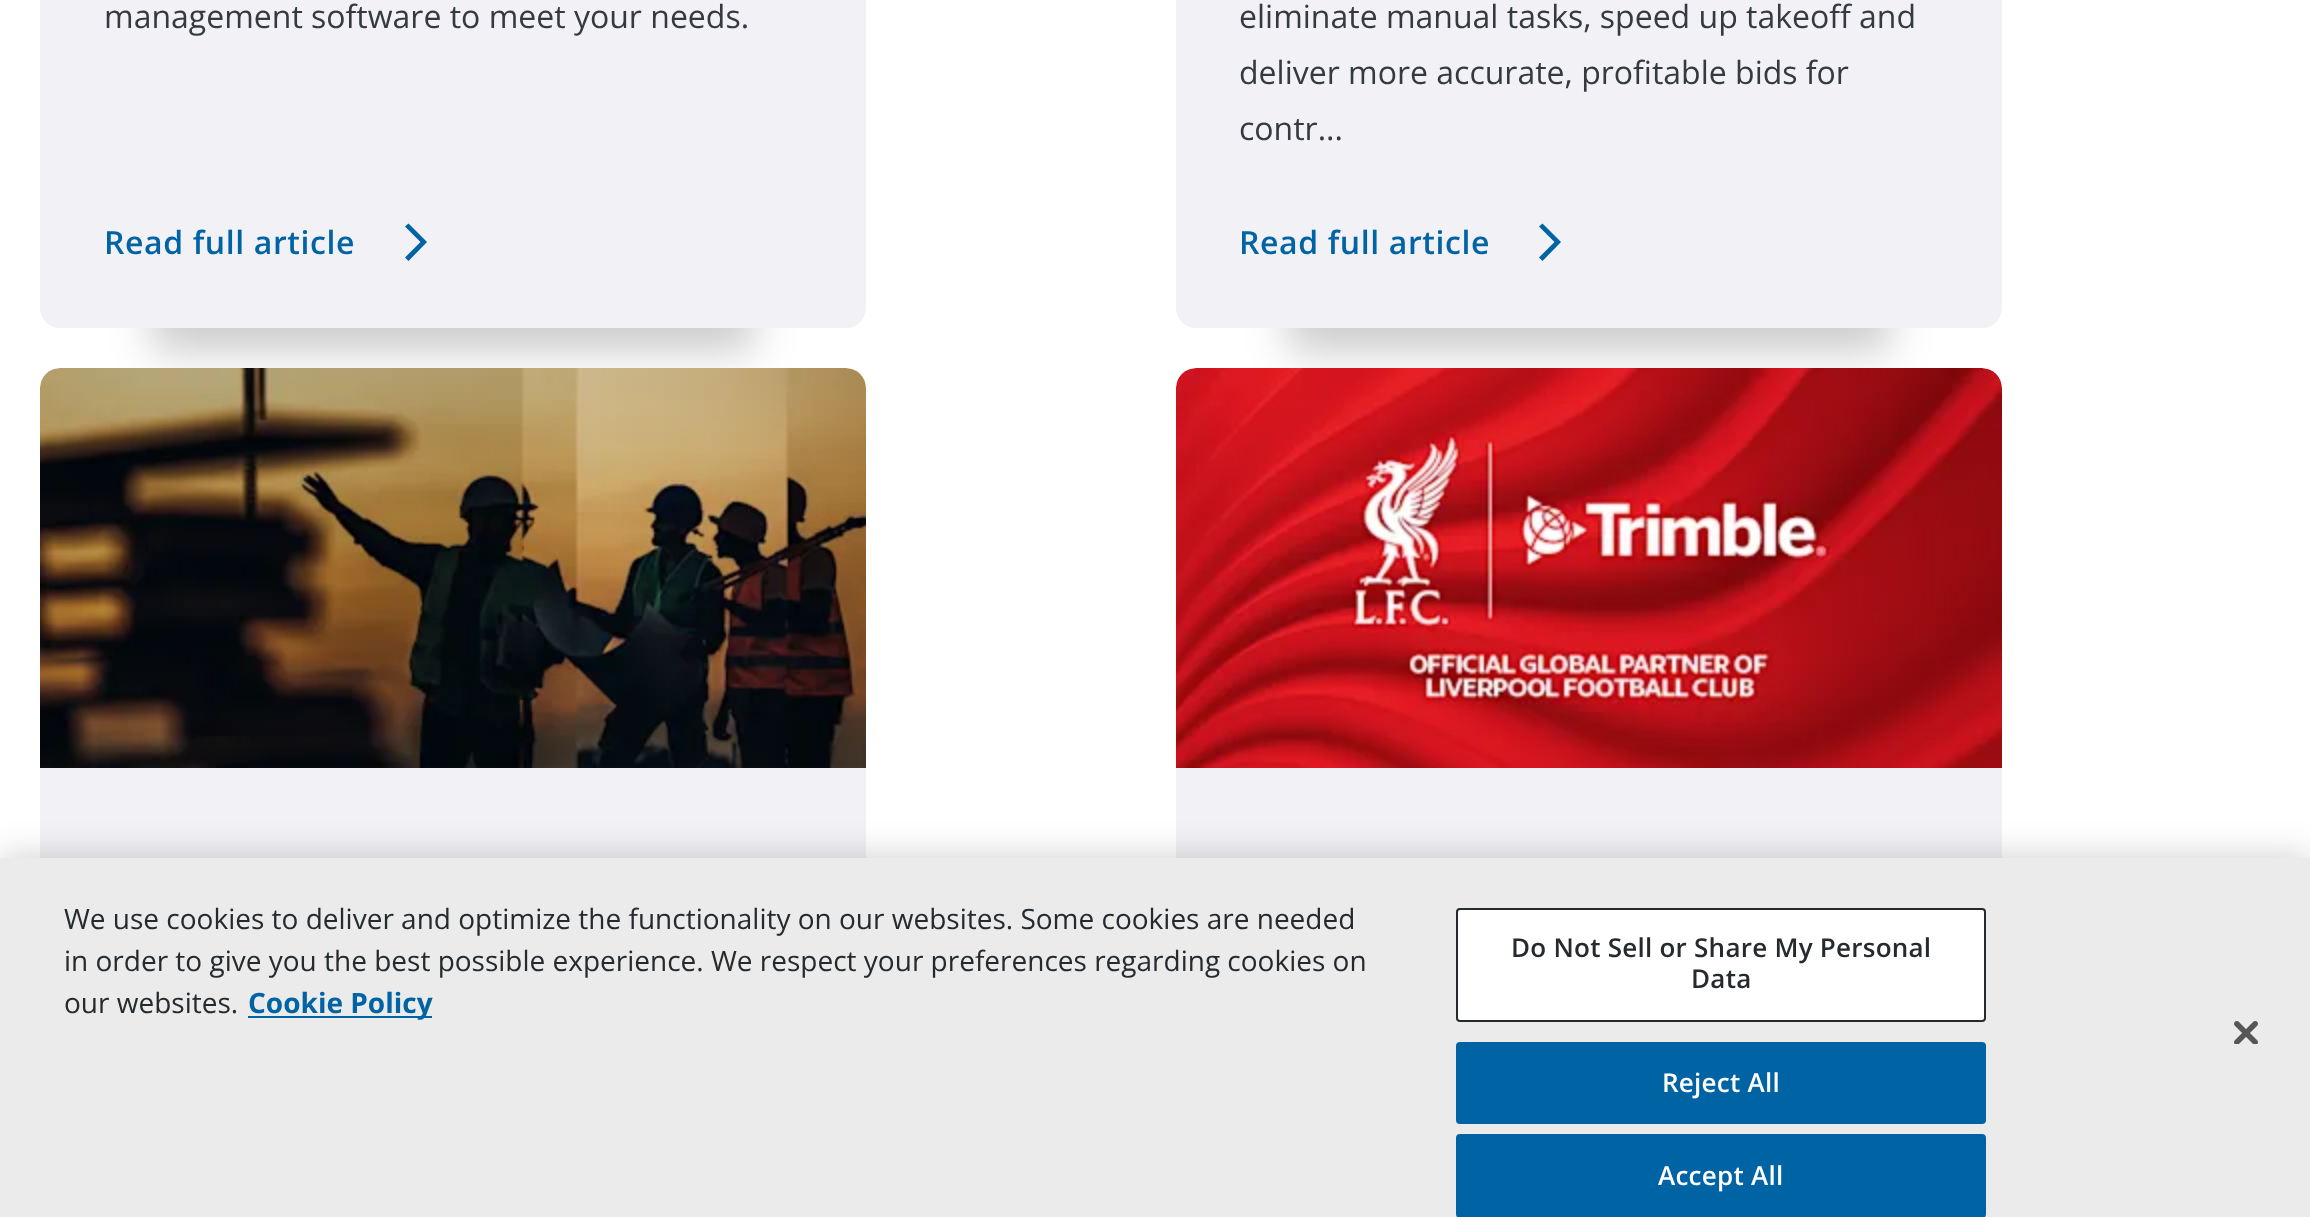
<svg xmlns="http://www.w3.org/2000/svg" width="2310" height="1217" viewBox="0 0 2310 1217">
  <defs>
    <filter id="blur1" x="-50%" y="-200%" width="200%" height="500%"><feGaussianBlur stdDeviation="21"/></filter>
    <filter id="blur2" x="-50%" y="-200%" width="200%" height="500%"><feGaussianBlur stdDeviation="18"/></filter>
  </defs>
  <rect width="100%" height="100%" fill="#ffffff"/>
  <rect x="152" y="-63" width="602" height="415" fill="#000000" fill-opacity="0.2" filter="url(#blur1)"/>
  <rect x="40" y="-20" width="826" height="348" rx="20" fill="#f1f1f6"/>
  <text x="104" y="28" font-family="Open Sans" font-size="32" fill="#353a40">management software to meet your needs.</text>
  <text x="104" y="254" font-family="Open Sans" font-size="32" font-weight="600" letter-spacing="0.6" fill="#0063a3">Read full article</text>
  <path d="M408.5 223.5L427 242L408.5 261L405 257.5L420.5 242L405 226.5Z" fill="#0063a3"/>
  <rect x="1288" y="-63" width="602" height="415" fill="#000000" fill-opacity="0.2" filter="url(#blur1)"/>
  <rect x="1176" y="-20" width="826" height="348" rx="20" fill="#f1f1f6"/>
  <text x="1239" y="28" font-family="Open Sans" font-size="32" fill="#353a40">eliminate manual tasks, speed up takeoff and</text>
  <text x="1239" y="84" font-family="Open Sans" font-size="32" fill="#353a40">deliver more accurate, profitable bids for</text>
  <text x="1239" y="140" font-family="Open Sans" font-size="32" fill="#353a40">contr...</text>
  <text x="1239" y="254" font-family="Open Sans" font-size="32" font-weight="600" letter-spacing="0.6" fill="#0063a3">Read full article</text>
  <path d="M1542.5 223.5L1561 242L1542.5 261L1539 257.5L1554.5 242L1539 226.5Z" fill="#0063a3"/>
  <rect x="40" y="368" width="826" height="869" rx="20" fill="#f1f1f6"/>
  <image x="40" y="368" width="826" height="400" href="img1.png"/>
  <rect x="1176" y="368" width="826" height="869" rx="20" fill="#f1f1f6"/>
  <image x="1176" y="368" width="826" height="400" href="img2.png"/>
  <rect x="0" y="858" width="2310" height="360" fill="#000000" fill-opacity="0.2" filter="url(#blur2)"/>
  <rect x="0" y="858" width="2310" height="359" fill="#ebebeb"/>
  <text x="64" y="929" font-family="Open Sans" font-size="28" fill="#252a2e">We use cookies to deliver and optimize the functionality on our websites. Some cookies are needed</text>
  <text x="64" y="971" font-family="Open Sans" font-size="28" fill="#252a2e">in order to give you the best possible experience. We respect your preferences regarding cookies on</text>
  <text x="64" y="1013" font-family="Open Sans" font-size="28" fill="#252a2e">our websites.</text>
  <rect x="248" y="1016" width="184" height="2" fill="#0063a3"/>
  <text x="248" y="1013" font-family="Open Sans" font-size="28" font-weight="bold" fill="#0063a3">Cookie Policy</text>
  <rect x="1457" y="909" width="528" height="112" rx="3" fill="#ffffff" stroke="#252a2e" stroke-width="2"/>
  <text x="1511" y="957" font-family="Open Sans" font-size="26" font-weight="600" letter-spacing="0.25" fill="#252a2e">Do Not Sell or Share My Personal</text>
  <text x="1691" y="988" font-family="Open Sans" font-size="26" font-weight="600" letter-spacing="0.25" fill="#252a2e">Data</text>
  <rect x="1457" y="1043" width="528" height="80" rx="3" fill="#0063a3" stroke="#0063a3" stroke-width="2"/>
  <text x="1662" y="1092" font-family="Open Sans" font-size="26" font-weight="600" letter-spacing="0.25" fill="#ffffff">Reject All</text>
  <rect x="1457" y="1135" width="528" height="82" rx="3" fill="#0063a3" stroke="#0063a3" stroke-width="2"/>
  <text x="1658" y="1185" font-family="Open Sans" font-size="26" font-weight="600" letter-spacing="0.25" fill="#ffffff">Accept All</text>
  <image x="2234" y="1021" width="24" height="23" href="img3.png"/>
</svg>
